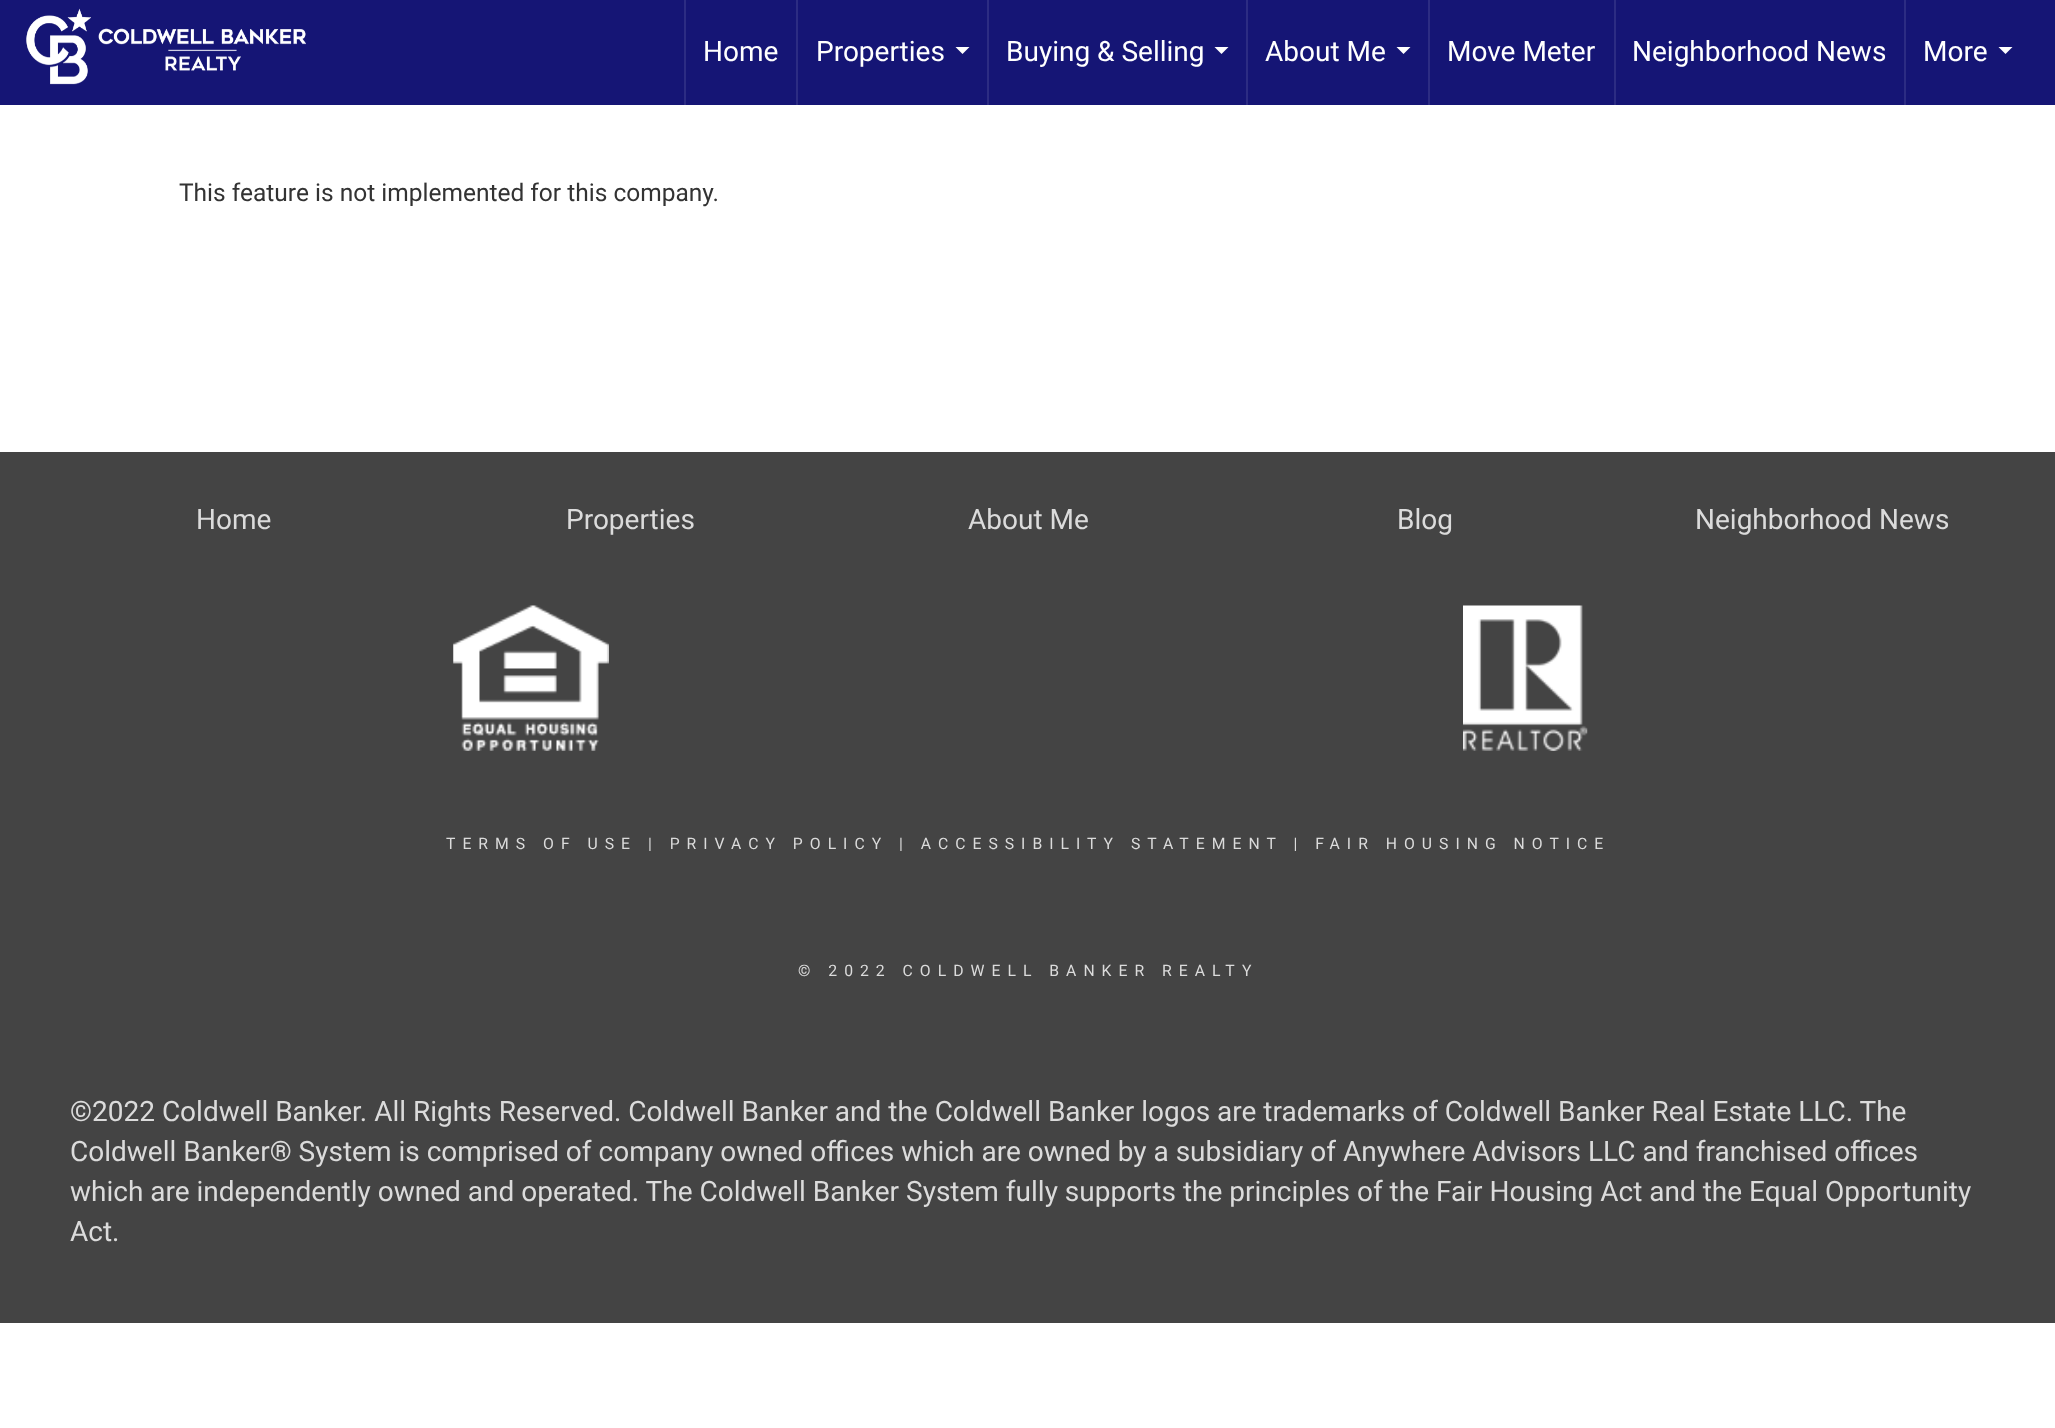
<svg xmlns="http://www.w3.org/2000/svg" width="2055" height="1428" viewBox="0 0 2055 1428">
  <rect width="100%" height="100%" fill="#ffffff"/>
  <rect x="0" y="0" width="2055" height="105" fill="#151575"/>
  <image x="26" y="8" width="280" height="77" href="img1.png"/>
  <rect x="684" y="0" width="2" height="105" fill="#2c2c83"/>
  <text x="703" y="61" font-family="Roboto" font-size="28" fill="#ffffff">Home</text>
  <rect x="796" y="0" width="2" height="105" fill="#2c2c83"/>
  <text x="816" y="61" font-family="Roboto" font-size="28" fill="#ffffff">Properties</text>
  <path d="M955.5 47H969.5L962.5 54Z" fill="#ffffff"/>
  <rect x="987" y="0" width="2" height="105" fill="#2c2c83"/>
  <text x="1006" y="61" font-family="Roboto" font-size="28" fill="#ffffff">Buying &amp; Selling</text>
  <path d="M1214.5 47H1228.5L1221.5 54Z" fill="#ffffff"/>
  <rect x="1246" y="0" width="2" height="105" fill="#2c2c83"/>
  <text x="1265" y="61" font-family="Roboto" font-size="28" fill="#ffffff">About Me</text>
  <path d="M1396.5 47H1410.5L1403.5 54Z" fill="#ffffff"/>
  <rect x="1428" y="0" width="2" height="105" fill="#2c2c83"/>
  <text x="1447" y="61" font-family="Roboto" font-size="28" fill="#ffffff">Move Meter</text>
  <rect x="1614" y="0" width="2" height="105" fill="#2c2c83"/>
  <text x="1632" y="61" font-family="Roboto" font-size="28" fill="#ffffff">Neighborhood News</text>
  <rect x="1904" y="0" width="2" height="105" fill="#2c2c83"/>
  <text x="1923" y="61" font-family="Roboto" font-size="28" fill="#ffffff">More</text>
  <path d="M1998.5 47H2012.5L2005.5 54Z" fill="#ffffff"/>
  <text x="179" y="201" font-family="Roboto" font-size="24.5" fill="#333333">This feature is not implemented for this company.</text>
  <rect x="0" y="452" width="2055" height="871" fill="#444444"/>
  <text x="196" y="529" font-family="Roboto" font-size="28" fill="#dbdbdb">Home</text>
  <text x="566" y="529" font-family="Roboto" font-size="28" fill="#dbdbdb">Properties</text>
  <text x="968" y="529" font-family="Roboto" font-size="28" fill="#dbdbdb">About Me</text>
  <text x="1397" y="529" font-family="Roboto" font-size="28" fill="#dbdbdb">Blog</text>
  <text x="1695" y="529" font-family="Roboto" font-size="28" fill="#dbdbdb">Neighborhood News</text>
  <image x="453" y="605" width="156" height="146" href="img2.png"/>
  <image x="1463" y="605" width="125" height="146" href="img3.png"/>
  <text x="446" y="849" font-family="Roboto" font-size="15.75" letter-spacing="7" fill="#dbdbdb">TERMS OF USE | PRIVACY POLICY | ACCESSIBILITY STATEMENT | FAIR HOUSING NOTICE</text>
  <text x="798" y="976" font-family="Roboto" font-size="15.75" letter-spacing="7" fill="#dbdbdb">© 2022 COLDWELL BANKER REALTY</text>
  <text x="70" y="1121" font-family="Roboto" font-size="28" fill="#dbdbdb">©2022 Coldwell Banker. All Rights Reserved. Coldwell Banker and the Coldwell Banker logos are trademarks of Coldwell Banker Real Estate LLC. The</text>
  <text x="70" y="1161" font-family="Roboto" font-size="28" fill="#dbdbdb">Coldwell Banker® System is comprised of company owned offices which are owned by a subsidiary of Anywhere Advisors LLC and franchised offices</text>
  <text x="70" y="1201" font-family="Roboto" font-size="28" fill="#dbdbdb">which are independently owned and operated. The Coldwell Banker System fully supports the principles of the Fair Housing Act and the Equal Opportunity</text>
  <text x="70" y="1241" font-family="Roboto" font-size="28" fill="#dbdbdb">Act.</text>
</svg>
